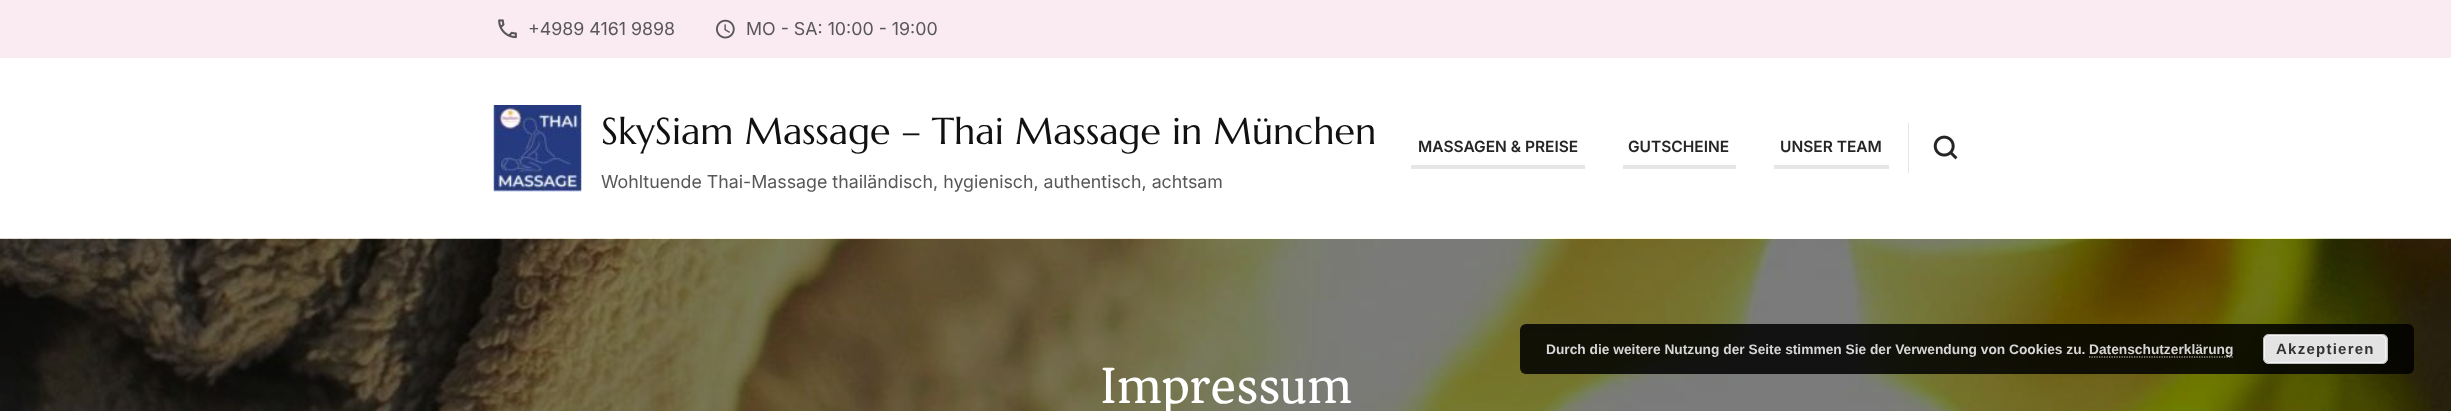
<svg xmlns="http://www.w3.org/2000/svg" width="2451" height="411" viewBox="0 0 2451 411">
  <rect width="100%" height="100%" fill="#ffffff"/>
  <rect x="0" y="0" width="2451" height="58" fill="#faebf3"/>
  <image x="498" y="19" width="19" height="20" href="img1.png"/>
  <text x="528" y="35" font-family="Inter" font-size="17.8" fill="#585656">+4989 4161 9898</text>
  <image x="716" y="19" width="19" height="20" href="img2.png"/>
  <text x="746" y="35" font-family="Inter" font-size="17.8" fill="#585656">MO - SA: 10:00 - 19:00</text>
  <image x="493" y="105" width="89" height="87" href="img3.png"/>
  <text x="601" y="144" font-family="Marcellus" font-size="37.5" fill="#111111">SkySiam Massage – Thai Massage in München</text>
  <text x="601" y="188" font-family="Inter" font-size="17.8" fill="#585656">Wohltuende Thai-Massage thailändisch, hygienisch, authentisch, achtsam</text>
  <text x="1418" y="152" font-family="Inter" font-size="15.5" font-weight="600" fill="#262525">MASSAGEN &amp; PREISE</text>
  <rect x="1411" y="165" width="174" height="4" fill="#e6e6e6"/>
  <text x="1628" y="152" font-family="Inter" font-size="15.5" font-weight="600" fill="#262525">GUTSCHEINE</text>
  <rect x="1623" y="165" width="113" height="4" fill="#e6e6e6"/>
  <text x="1780" y="152" font-family="Inter" font-size="15.5" font-weight="600" fill="#262525">UNSER TEAM</text>
  <rect x="1774" y="165" width="115" height="4" fill="#e6e6e6"/>
  <rect x="1908" y="123" width="1" height="50" fill="#e6e6e6"/>
  <image x="1933" y="135" width="25" height="25" href="img4.png"/>
  <image x="0" y="238" width="2451" height="173" href="img5.png"/>
  <text x="1100" y="403" font-family="Asar" font-size="53.5" fill="#ffffff">Impressum</text>
  <rect x="1520" y="324" width="894" height="50" rx="6" fill="#000000" fill-opacity="0.85"/>
  <text x="1546" y="354" font-family="Liberation Sans" font-size="13.75" font-weight="bold" fill="#d6d6d6">Durch die weitere Nutzung der Seite stimmen Sie der Verwendung von Cookies zu.</text>
  <path d="M2089 357H2234" fill="none" stroke="#d6d6d6" stroke-width="1.2" stroke-dasharray="1.25 1.25"/>
  <text x="2089" y="354" font-family="Liberation Sans" font-size="13.75" font-weight="bold" fill="#d6d6d6">Datenschutzerklärung</text>
  <rect x="2263" y="334" width="125" height="30" rx="6" fill="#e3e3e3"/>
  <rect x="2264.5" y="335.5" width="121" height="27" rx="4.5" fill="none" stroke="#f6f6f6"/>
  <rect x="2263.5" y="334.5" width="124" height="29" rx="5.5" fill="none" stroke="#bbbbbb"/>
  <text x="2276" y="354" font-family="Liberation Sans" font-size="15" font-weight="bold" letter-spacing="1.25" fill="#333333">Akzeptieren</text>
</svg>
